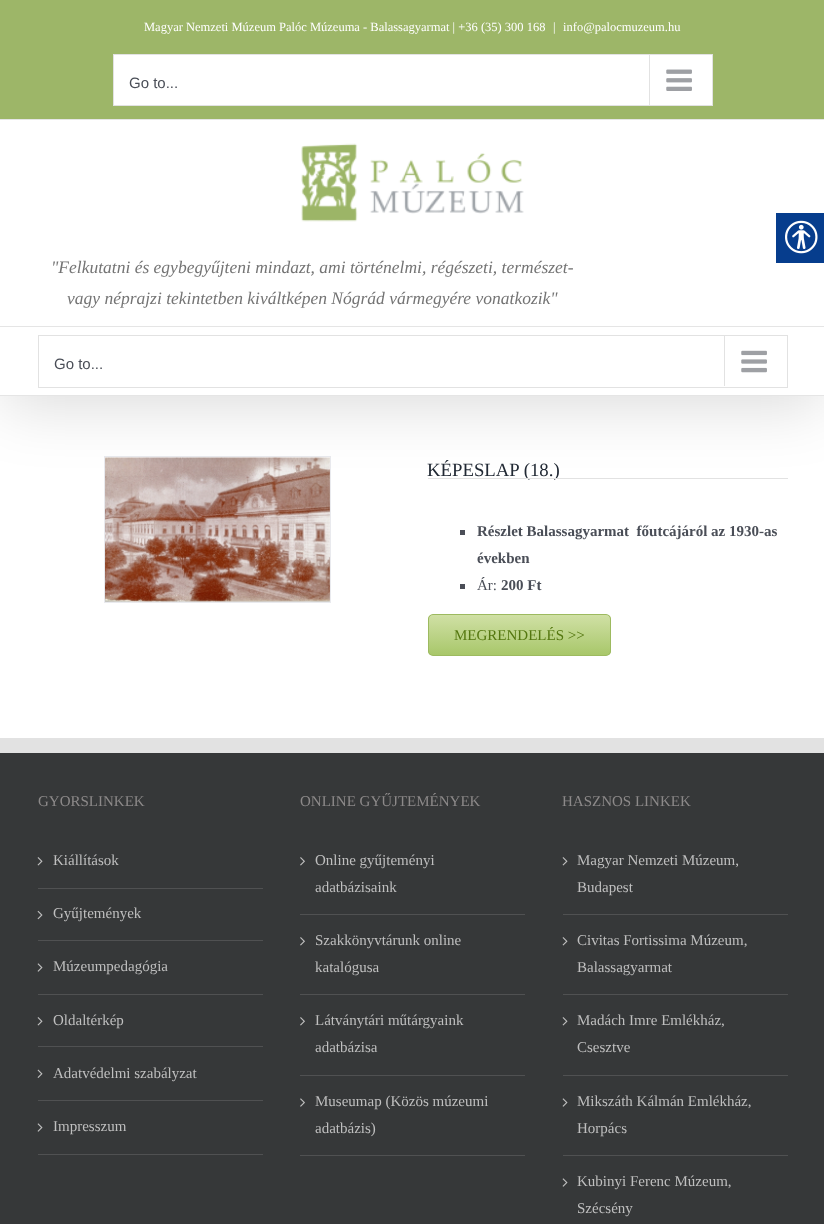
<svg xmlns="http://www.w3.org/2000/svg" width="824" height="1224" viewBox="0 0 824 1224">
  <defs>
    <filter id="blur1" x="-50%" y="-200%" width="200%" height="500%"><feGaussianBlur stdDeviation="31"/></filter>
    <clipPath id="clip1"><rect x="428" y="614" width="183" height="42" rx="5"/></clipPath>
    <linearGradient id="g1" gradientUnits="userSpaceOnUse" x1="519" y1="655" x2="519" y2="615"><stop offset="0" stop-color="#a8c76a"/><stop offset="1" stop-color="#d0e0a5"/></linearGradient>
  </defs>
  <rect width="100%" height="100%" fill="#ffffff"/>
  <rect x="104.5" y="456.5" width="226" height="146" fill="none" stroke="#e9eaee"/>
  <image x="105" y="457" width="225" height="145" href="img4.png"/>
  <text x="427" y="476" font-family="Liberation Serif" font-size="18.75" fill="#212934">KÉPESLAP (18.)</text>
  <rect x="428" y="478" width="360" height="1" fill="#e2e2e2"/>
  <rect x="3" y="15" width="820" height="391" fill="#000000" fill-opacity="0.14" filter="url(#blur1)"/>
  <rect x="0" y="0" width="824" height="119" fill="#9db668"/>
  <rect x="0" y="119" width="824" height="1" fill="#e5e5e5"/>
  <text x="144" y="31" font-family="Liberation Serif" font-size="12.5" fill="#ffffff">Magyar Nemzeti Múzeum Palóc Múzeuma - Balassagyarmat | +36 (35) 300 168</text>
  <text x="553" y="31" font-family="Liberation Serif" font-size="12.5" fill="#ffffff">|</text>
  <text x="563" y="31" font-family="Liberation Serif" font-size="12.5" fill="#ffffff">info@palocmuzeum.hu</text>
  <rect x="113.5" y="54.5" width="599" height="51" fill="#ffffff" stroke="#e2e2e2"/>
  <text x="129" y="88" font-family="Liberation Sans" font-size="15" fill="#4a4e57">Go to...</text>
  <rect x="649" y="55" width="1" height="50" fill="#e2e2e2"/>
  <image x="666" y="69" width="26" height="22" href="img1.png"/>
  <rect x="0" y="120" width="824" height="275" fill="#ffffff"/>
  <rect x="0" y="326" width="824" height="1" fill="#e5e5e5"/>
  <image x="301" y="143" width="223" height="79" href="img2.png"/>
  <text x="51" y="273" font-family="Liberation Serif" font-size="17.5" font-style="italic" fill="#747474">"Felkutatni és egybegyűjteni mindazt, ami történelmi, régészeti, természet-</text>
  <text x="67" y="304" font-family="Liberation Serif" font-size="17.5" font-style="italic" fill="#747474">vagy néprajzi tekintetben kiváltképen Nógrád vármegyére vonatkozik"</text>
  <rect x="0" y="395" width="824" height="1" fill="#e5e5e5"/>
  <rect x="38.5" y="335.5" width="749" height="52" fill="none" stroke="#e2e2e2"/>
  <text x="54" y="369" font-family="Liberation Sans" font-size="15" fill="#4a4e57">Go to...</text>
  <rect x="724" y="336" width="1" height="50" fill="#e2e2e2"/>
  <image x="741" y="350" width="26" height="23" href="img3.png"/>
  <rect x="460" y="530" width="5" height="5" fill="#4a4e57"/>
  <text x="477" y="536" font-family="Liberation Serif" font-size="15" font-weight="bold" fill="#4a4e57" xml:space="preserve">Részlet Balassagyarmat  főutcájáról az 1930-as</text>
  <text x="477" y="563" font-family="Liberation Serif" font-size="15" font-weight="bold" fill="#4a4e57">években</text>
  <rect x="460" y="584" width="5" height="5" fill="#4a4e57"/>
  <text x="477" y="590" font-family="Liberation Serif" font-size="15" fill="#4a4e57">Ár:</text>
  <text x="501" y="590" font-family="Liberation Serif" font-size="15" font-weight="bold" fill="#4a4e57">200 Ft</text>
  <g clip-path="url(#clip1)">
    <rect x="428" y="615" width="183" height="40" fill="url(#g1)"/>
  </g>
  <rect x="428.5" y="614.5" width="182" height="41" rx="4.5" fill="none" stroke="#9dba60"/>
  <text x="454" y="640" font-family="Liberation Serif" font-size="15" fill="#54770f">MEGRENDELÉS &gt;&gt;</text>
  <rect x="0" y="753" width="824" height="471" fill="#363839"/>
  <rect x="0" y="738" width="824" height="15" fill="#e2e2e2"/>
  <text x="38" y="806" font-family="Liberation Serif" font-size="15" fill="#8c8989">GYORSLINKEK</text>
  <rect x="38" y="888" width="225" height="1" fill="#505152"/>
  <image x="37" y="857" width="6" height="9" href="img5.png"/>
  <text x="53" y="865" font-family="Liberation Serif" font-size="15" fill="#bfbfbf">Kiállítások</text>
  <rect x="38" y="940" width="225" height="1" fill="#505152"/>
  <image x="37" y="910" width="6" height="10" href="img6.png"/>
  <text x="53" y="918" font-family="Liberation Serif" font-size="15" fill="#bfbfbf">Gyűjtemények</text>
  <rect x="38" y="994" width="225" height="1" fill="#505152"/>
  <image x="37" y="963" width="6" height="9" href="img7.png"/>
  <text x="53" y="971" font-family="Liberation Serif" font-size="15" fill="#bfbfbf">Múzeumpedagógia</text>
  <rect x="38" y="1046" width="225" height="1" fill="#505152"/>
  <image x="37" y="1017" width="6" height="9" href="img5.png"/>
  <text x="53" y="1025" font-family="Liberation Serif" font-size="15" fill="#bfbfbf">Oldaltérkép</text>
  <rect x="38" y="1100" width="225" height="1" fill="#505152"/>
  <image x="37" y="1069" width="6" height="9" href="img8.png"/>
  <text x="53" y="1078" font-family="Liberation Serif" font-size="15" fill="#bfbfbf">Adatvédelmi szabályzat</text>
  <rect x="38" y="1154" width="225" height="1" fill="#505152"/>
  <image x="37" y="1123" width="6" height="9" href="img7.png"/>
  <text x="53" y="1131" font-family="Liberation Serif" font-size="15" fill="#bfbfbf">Impresszum</text>
  <text x="300" y="806" font-family="Liberation Serif" font-size="15" fill="#8c8989">ONLINE GYŰJTEMÉNYEK</text>
  <rect x="300" y="914" width="225" height="1" fill="#505152"/>
  <image x="300" y="857" width="5" height="9" href="img9.png"/>
  <text x="315" y="865" font-family="Liberation Serif" font-size="15" fill="#bfbfbf">Online gyűjteményi</text>
  <text x="315" y="892" font-family="Liberation Serif" font-size="15" fill="#bfbfbf">adatbázisaink</text>
  <rect x="300" y="994" width="225" height="1" fill="#505152"/>
  <image x="300" y="937" width="5" height="9" href="img9.png"/>
  <text x="315" y="945" font-family="Liberation Serif" font-size="15" fill="#bfbfbf">Szakkönyvtárunk online</text>
  <text x="315" y="972" font-family="Liberation Serif" font-size="15" fill="#bfbfbf">katalógusa</text>
  <rect x="300" y="1075" width="225" height="1" fill="#505152"/>
  <image x="300" y="1017" width="5" height="9" href="img9.png"/>
  <text x="315" y="1025" font-family="Liberation Serif" font-size="15" fill="#bfbfbf">Látványtári műtárgyaink</text>
  <text x="315" y="1052" font-family="Liberation Serif" font-size="15" fill="#bfbfbf">adatbázisa</text>
  <rect x="300" y="1155" width="225" height="1" fill="#505152"/>
  <image x="300" y="1098" width="5" height="9" href="img10.png"/>
  <text x="315" y="1106" font-family="Liberation Serif" font-size="15" fill="#bfbfbf">Museumap (Közös múzeumi</text>
  <text x="315" y="1133" font-family="Liberation Serif" font-size="15" fill="#bfbfbf">adatbázis)</text>
  <text x="562" y="806" font-family="Liberation Serif" font-size="15" fill="#8c8989">HASZNOS LINKEK</text>
  <rect x="563" y="914" width="225" height="1" fill="#505152"/>
  <image x="562" y="857" width="6" height="9" href="img5.png"/>
  <text x="577" y="865" font-family="Liberation Serif" font-size="15" fill="#bfbfbf">Magyar Nemzeti Múzeum,</text>
  <text x="577" y="892" font-family="Liberation Serif" font-size="15" fill="#bfbfbf">Budapest</text>
  <rect x="563" y="994" width="225" height="1" fill="#505152"/>
  <image x="562" y="937" width="6" height="9" href="img5.png"/>
  <text x="577" y="945" font-family="Liberation Serif" font-size="15" fill="#bfbfbf">Civitas Fortissima Múzeum,</text>
  <text x="577" y="972" font-family="Liberation Serif" font-size="15" fill="#bfbfbf">Balassagyarmat</text>
  <rect x="563" y="1075" width="225" height="1" fill="#505152"/>
  <image x="562" y="1017" width="6" height="9" href="img5.png"/>
  <text x="577" y="1025" font-family="Liberation Serif" font-size="15" fill="#bfbfbf">Madách Imre Emlékház,</text>
  <text x="577" y="1052" font-family="Liberation Serif" font-size="15" fill="#bfbfbf">Csesztve</text>
  <rect x="563" y="1155" width="225" height="1" fill="#505152"/>
  <image x="562" y="1098" width="6" height="9" href="img7.png"/>
  <text x="577" y="1106" font-family="Liberation Serif" font-size="15" fill="#bfbfbf">Mikszáth Kálmán Emlékház,</text>
  <text x="577" y="1133" font-family="Liberation Serif" font-size="15" fill="#bfbfbf">Horpács</text>
  <image x="562" y="1178" width="6" height="9" href="img7.png"/>
  <text x="577" y="1186" font-family="Liberation Serif" font-size="15" fill="#bfbfbf">Kubinyi Ferenc Múzeum,</text>
  <text x="577" y="1213" font-family="Liberation Serif" font-size="15" fill="#bfbfbf">Szécsény</text>
  <rect x="776" y="213" width="48" height="50" fill="#063d8d"/>
  <image x="785" y="220" width="33" height="34" href="img11.png"/>
</svg>
